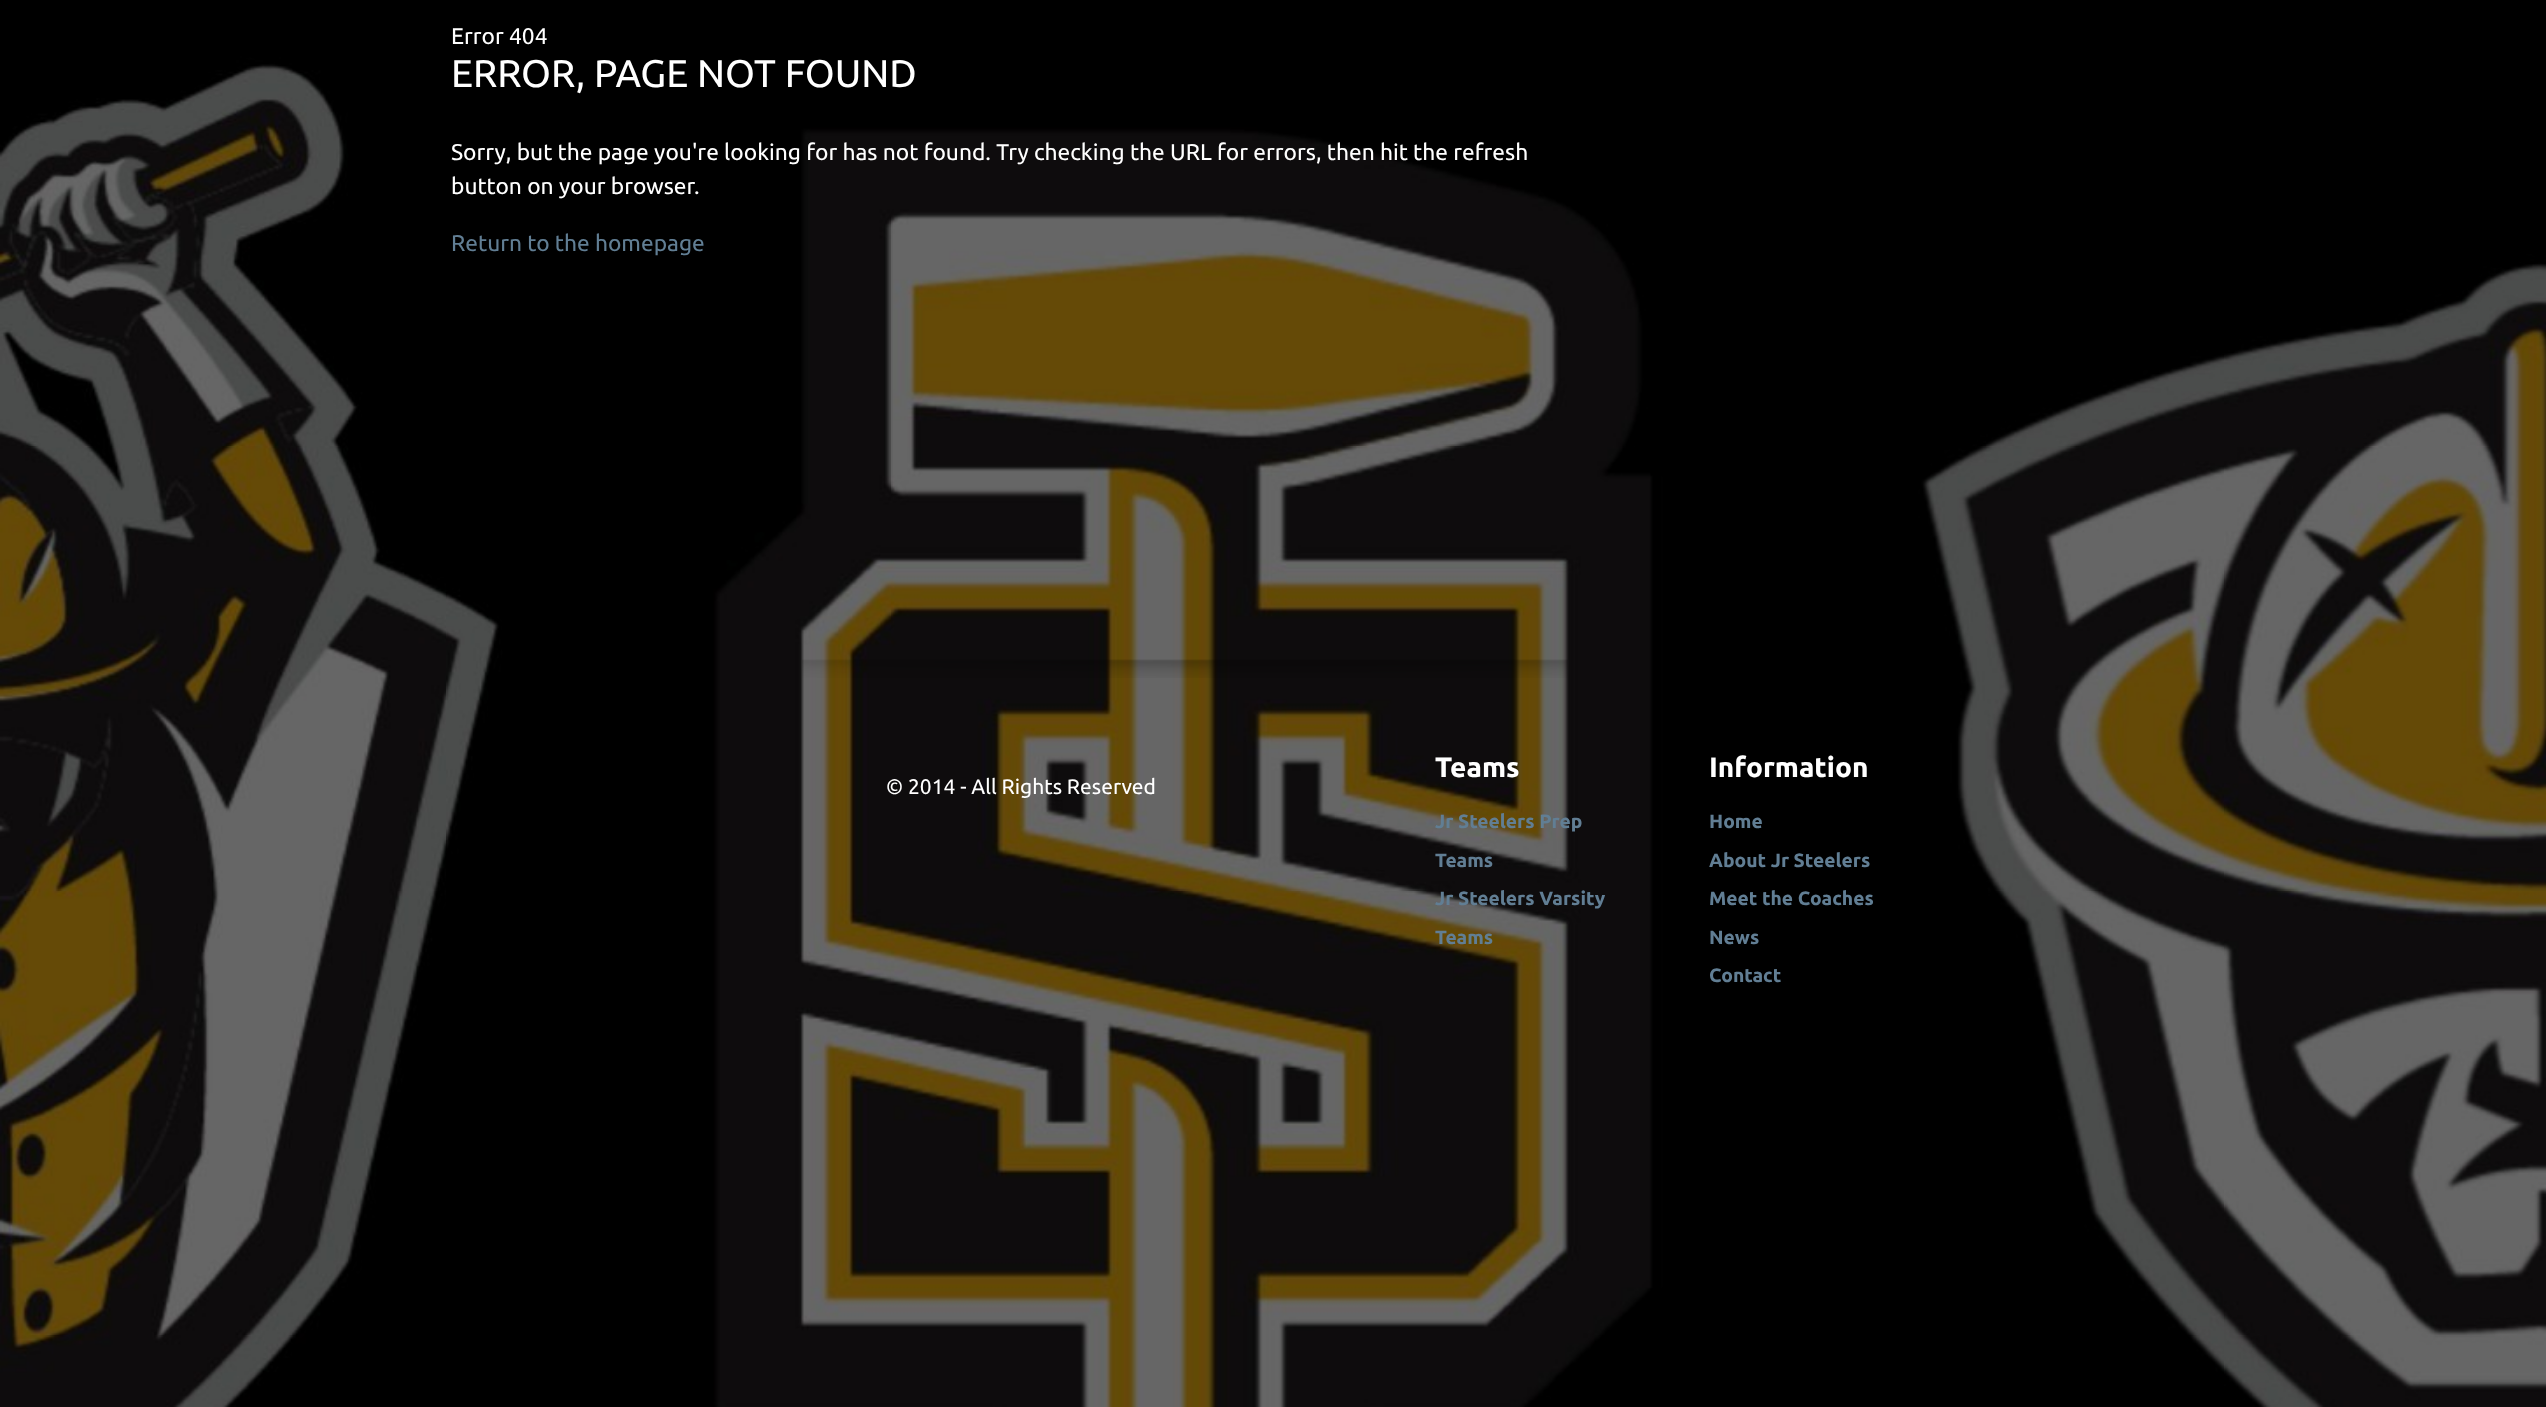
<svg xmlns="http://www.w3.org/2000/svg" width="2546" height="1407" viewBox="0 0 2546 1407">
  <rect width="100%" height="100%" fill="#ffffff"/>
  <image x="0" y="0" width="2546" height="1407" href="img1.png"/>
  <text x="451" y="44" font-family="Ubuntu" font-size="22.75" fill="#ffffff">Error 404</text>
  <text x="451" y="87" font-family="Ubuntu" font-size="38.5" fill="#ffffff">ERROR, PAGE NOT FOUND</text>
  <text x="451" y="160" font-family="Ubuntu" font-size="22.75" fill="#ffffff">Sorry, but the page you're looking for has not found. Try checking the URL for errors, then hit the refresh</text>
  <text x="451" y="194" font-family="Ubuntu" font-size="22.75" fill="#ffffff">button on your browser.</text>
  <text x="451" y="251" font-family="Ubuntu" font-size="22.75" fill="#617e94">Return to the homepage</text>
  <image x="802" y="659" width="766" height="19" href="img2.png"/>
  <text x="886" y="794" font-family="Ubuntu" font-size="21" fill="#ffffff">© 2014 - All Rights Reserved</text>
  <text x="1435" y="777" font-family="Ubuntu" font-size="28" font-weight="bold" fill="#ffffff">Teams</text>
  <text x="1435" y="828" font-family="Ubuntu" font-size="19.25" font-weight="bold" fill="#617e94">Jr Steelers Prep</text>
  <text x="1435" y="867" font-family="Ubuntu" font-size="19.25" font-weight="bold" fill="#617e94">Teams</text>
  <text x="1435" y="905" font-family="Ubuntu" font-size="19.25" font-weight="bold" fill="#617e94">Jr Steelers Varsity</text>
  <text x="1435" y="944" font-family="Ubuntu" font-size="19.25" font-weight="bold" fill="#617e94">Teams</text>
  <text x="1709" y="777" font-family="Ubuntu" font-size="28" font-weight="bold" fill="#ffffff">Information</text>
  <text x="1709" y="828" font-family="Ubuntu" font-size="19.25" font-weight="bold" fill="#617e94">Home</text>
  <text x="1709" y="867" font-family="Ubuntu" font-size="19.25" font-weight="bold" fill="#617e94">About Jr Steelers</text>
  <text x="1709" y="905" font-family="Ubuntu" font-size="19.25" font-weight="bold" fill="#617e94">Meet the Coaches</text>
  <text x="1709" y="944" font-family="Ubuntu" font-size="19.25" font-weight="bold" fill="#617e94">News</text>
  <text x="1709" y="982" font-family="Ubuntu" font-size="19.25" font-weight="bold" fill="#617e94">Contact</text>
</svg>
